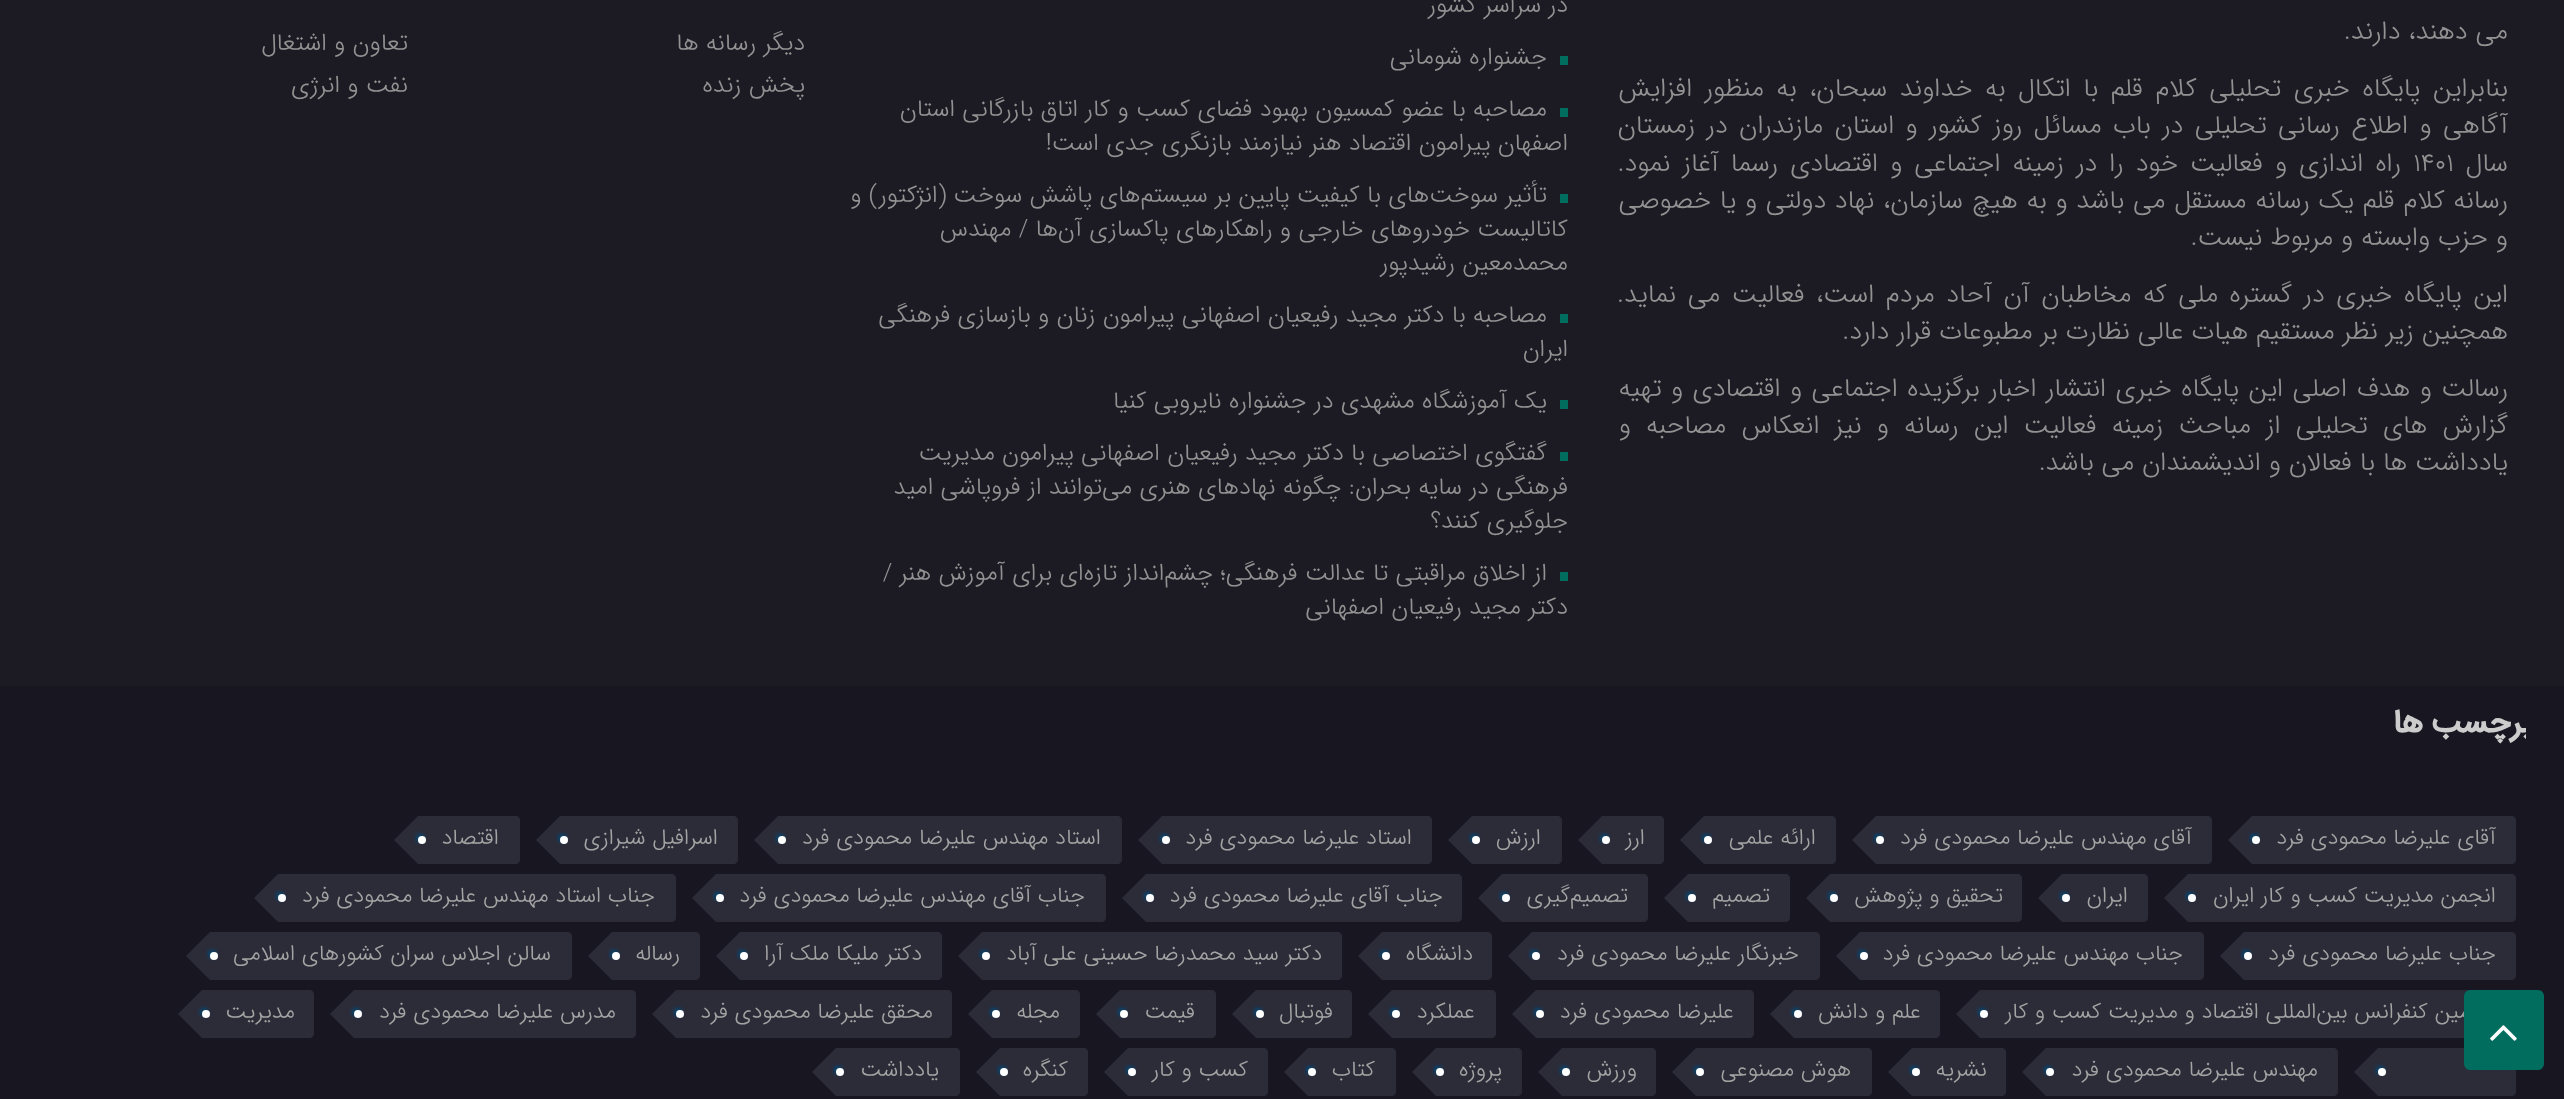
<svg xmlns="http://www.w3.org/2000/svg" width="2564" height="1099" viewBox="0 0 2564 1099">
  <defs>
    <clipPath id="clip1"><rect x="38" y="686" width="2488" height="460"/></clipPath>
    <filter id="blur1" x="-50%" y="-200%" width="200%" height="500%"><feGaussianBlur stdDeviation="2"/></filter>
  </defs>
  <rect width="100%" height="100%" fill="#181721"/>
  <rect x="0" y="0" width="2564" height="686" fill="#1c1b24"/>
  <text x="2508" y="39" font-family="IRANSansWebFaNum" font-size="26" font-weight="300" direction="rtl" fill="#929292">می دهند، دارند.</text>
  <text x="2508" y="96" word-spacing="4.6" font-family="IRANSansWebFaNum" font-size="26" font-weight="300" direction="rtl" fill="#929292">بنابراین پایگاه خبری تحلیلی کلام قلم با اتکال به خداوند سبحان، به منظور افزایش</text>
  <text x="2508" y="133" word-spacing="3.5" font-family="IRANSansWebFaNum" font-size="26" font-weight="300" direction="rtl" fill="#929292">آگاهی و اطلاع رسانی تحلیلی در باب مسائل روز کشور و استان مازندران در زمستان</text>
  <text x="2508" y="171" font-family="IRANSansWebFaNum" font-size="26" font-weight="300" direction="rtl" fill="#929292">سال</text>
  <text x="2413" y="171" font-family="IRANSansWebFaNum" font-size="26" font-weight="300" fill="#929292">1401</text>
  <text x="2401" y="171" word-spacing="4.1" font-family="IRANSansWebFaNum" font-size="26" font-weight="300" direction="rtl" fill="#929292">راه اندازی و فعالیت خود را در زمینه اجتماعی و اقتصادی رسما آغاز نمود.</text>
  <text x="2508" y="208" word-spacing="0.75" font-family="IRANSansWebFaNum" font-size="26" font-weight="300" direction="rtl" fill="#929292">رسانه کلام قلم یک رسانه مستقل می باشد و به هیچ سازمان، نهاد دولتی و یا خصوصی</text>
  <text x="2508" y="245" font-family="IRANSansWebFaNum" font-size="26" font-weight="300" direction="rtl" fill="#929292">و حزب وابسته و مربوط نیست.</text>
  <text x="2508" y="302" word-spacing="3.6" font-family="IRANSansWebFaNum" font-size="26" font-weight="300" direction="rtl" fill="#929292">این پایگاه خبری در گستره ملی که مخاطبان آن آحاد مردم است، فعالیت می نماید.</text>
  <text x="2508" y="339" font-family="IRANSansWebFaNum" font-size="26" font-weight="300" direction="rtl" fill="#929292">همچنین زیر نظر مستقیم هیات عالی نظارت بر مطبوعات قرار دارد.</text>
  <text x="2508" y="396" word-spacing="1.5" font-family="IRANSansWebFaNum" font-size="26" font-weight="300" direction="rtl" fill="#929292">رسالت و هدف اصلی این پایگاه خبری انتشار اخبار برگزیده اجتماعی و اقتصادی و تهیه</text>
  <text x="2508" y="433" word-spacing="7.25" font-family="IRANSansWebFaNum" font-size="26" font-weight="300" direction="rtl" fill="#929292">گزارش های تحلیلی از مباحث زمینه فعالیت این رسانه و نیز انعکاس مصاحبه و</text>
  <text x="2508" y="470" font-family="IRANSansWebFaNum" font-size="26" font-weight="300" direction="rtl" fill="#929292">یادداشت ها با فعالان و اندیشمندان می باشد.</text>
  <text x="1568" y="12" font-family="IRANSansWebFaNum" font-size="24" font-weight="300" direction="rtl" fill="#929292">در سراسر کشور</text>
  <rect x="1560" y="56" width="8" height="9" fill="#006d5f"/>
  <text x="1547" y="64" font-family="IRANSansWebFaNum" font-size="24" font-weight="300" direction="rtl" fill="#929292">جشنواره شومانی</text>
  <rect x="1560" y="108" width="8" height="9" fill="#006d5f"/>
  <text x="1547" y="116" font-family="IRANSansWebFaNum" font-size="24" font-weight="300" direction="rtl" fill="#929292">مصاحبه با عضو کمسیون بهبود فضای کسب و کار اتاق بازرگانی استان</text>
  <text x="1568" y="150" font-family="IRANSansWebFaNum" font-size="24" font-weight="300" direction="rtl" fill="#929292">اصفهان پیرامون اقتصاد هنر نیازمند بازنگری جدی است!</text>
  <rect x="1560" y="194" width="8" height="9" fill="#006d5f"/>
  <text x="1547" y="202" font-family="IRANSansWebFaNum" font-size="24" font-weight="300" direction="rtl" fill="#929292">تأثیر سوخت‌های با کیفیت پایین بر سیستم‌های پاشش سوخت (انژکتور) و</text>
  <text x="1568" y="236" font-family="IRANSansWebFaNum" font-size="24" font-weight="300" direction="rtl" fill="#929292">کاتالیست خودروهای خارجی و راهکارهای پاکسازی آن‌ها / مهندس</text>
  <text x="1568" y="270" font-family="IRANSansWebFaNum" font-size="24" font-weight="300" direction="rtl" fill="#929292">محمدمعین رشیدپور</text>
  <rect x="1560" y="314" width="8" height="9" fill="#006d5f"/>
  <text x="1547" y="322" font-family="IRANSansWebFaNum" font-size="24" font-weight="300" direction="rtl" fill="#929292">مصاحبه با دکتر مجید رفیعیان اصفهانی پیرامون زنان و بازسازی فرهنگی</text>
  <text x="1568" y="356" font-family="IRANSansWebFaNum" font-size="24" font-weight="300" direction="rtl" fill="#929292">ایران</text>
  <rect x="1560" y="400" width="8" height="9" fill="#006d5f"/>
  <text x="1547" y="408" font-family="IRANSansWebFaNum" font-size="24" font-weight="300" direction="rtl" fill="#929292">یک آموزشگاه مشهدی در جشنواره نایروبی کنیا</text>
  <rect x="1560" y="452" width="8" height="9" fill="#006d5f"/>
  <text x="1547" y="460" font-family="IRANSansWebFaNum" font-size="24" font-weight="300" direction="rtl" fill="#929292">گفتگوی اختصاصی با دکتر مجید رفیعیان اصفهانی پیرامون مدیریت</text>
  <text x="1568" y="494" font-family="IRANSansWebFaNum" font-size="24" font-weight="300" direction="rtl" fill="#929292">فرهنگی در سایه بحران: چگونه نهادهای هنری می‌توانند از فروپاشی امید</text>
  <text x="1568" y="528" font-family="IRANSansWebFaNum" font-size="24" font-weight="300" direction="rtl" fill="#929292">جلوگیری کنند؟</text>
  <rect x="1560" y="572" width="8" height="9" fill="#006d5f"/>
  <text x="1547" y="580" font-family="IRANSansWebFaNum" font-size="24" font-weight="300" direction="rtl" fill="#929292">از اخلاق مراقبتی تا عدالت فرهنگی؛ چشم‌انداز تازه‌ای برای آموزش هنر /</text>
  <text x="1568" y="614" font-family="IRANSansWebFaNum" font-size="24" font-weight="300" direction="rtl" fill="#929292">دکتر مجید رفیعیان اصفهانی</text>
  <text x="805" y="50" font-family="IRANSansWebFaNum" font-size="24" font-weight="300" direction="rtl" fill="#929292">دیگر رسانه ها</text>
  <text x="805" y="92" font-family="IRANSansWebFaNum" font-size="24" font-weight="300" direction="rtl" fill="#929292">پخش زنده</text>
  <text x="408" y="50" font-family="IRANSansWebFaNum" font-size="24" font-weight="300" direction="rtl" fill="#929292">تعاون و اشتغال</text>
  <text x="408" y="92" font-family="IRANSansWebFaNum" font-size="24" font-weight="300" direction="rtl" fill="#929292">نفت و انرژی</text>
  <g clip-path="url(#clip1)">
    <text x="2532" y="732" word-spacing="-2" font-family="IRANSansWebFaNum" font-size="32" font-weight="bold" letter-spacing="1" direction="rtl" fill="#cccccc">برچسب ها</text>
  </g>
  <path d="M2252 816H2512C2514 816 2516 818 2516 820V860C2516 862 2514 864 2512 864H2252Z" fill="#2c2b38"/>
  <text x="2496" y="844" font-family="IRANSansWebFaNum" font-size="22" font-weight="300" direction="rtl" fill="#a5a4a4">آقای علیرضا محمودی فرد</text>
  <path d="M2252 816V864L2228 840Z" fill="#2c2b38"/>
  <rect x="2250" y="834" width="8" height="8" rx="4" fill="#004977" filter="url(#blur1)"/>
  <circle cx="2256" cy="840" r="4" fill="#ffffff"/>
  <path d="M1876 816H2208C2210 816 2212 818 2212 820V860C2212 862 2210 864 2208 864H1876Z" fill="#2c2b38"/>
  <text x="2192" y="844" font-family="IRANSansWebFaNum" font-size="22" font-weight="300" direction="rtl" fill="#a5a4a4">آقای مهندس علیرضا محمودی فرد</text>
  <path d="M1876 816V864L1852 840Z" fill="#2c2b38"/>
  <rect x="1874" y="834" width="8" height="8" rx="4" fill="#004977" filter="url(#blur1)"/>
  <circle cx="1880" cy="840" r="4" fill="#ffffff"/>
  <path d="M1704 816H1832C1834 816 1836 818 1836 820V860C1836 862 1834 864 1832 864H1704Z" fill="#2c2b38"/>
  <text x="1816" y="844" font-family="IRANSansWebFaNum" font-size="22" font-weight="300" direction="rtl" fill="#a5a4a4">ارائه علمی</text>
  <path d="M1704 816V864L1680 840Z" fill="#2c2b38"/>
  <rect x="1702" y="834" width="8" height="8" rx="4" fill="#004977" filter="url(#blur1)"/>
  <circle cx="1708" cy="840" r="4" fill="#ffffff"/>
  <path d="M1602 816H1660C1662 816 1664 818 1664 820V860C1664 862 1662 864 1660 864H1602Z" fill="#2c2b38"/>
  <text x="1645" y="844" font-family="IRANSansWebFaNum" font-size="22" font-weight="300" direction="rtl" fill="#a5a4a4">ارز</text>
  <path d="M1602 816V864L1578 840Z" fill="#2c2b38"/>
  <rect x="1600" y="834" width="8" height="8" rx="4" fill="#004977" filter="url(#blur1)"/>
  <circle cx="1606" cy="840" r="4" fill="#ffffff"/>
  <path d="M1472 816H1558C1560 816 1562 818 1562 820V860C1562 862 1560 864 1558 864H1472Z" fill="#2c2b38"/>
  <text x="1541" y="844" font-family="IRANSansWebFaNum" font-size="22" font-weight="300" direction="rtl" fill="#a5a4a4">ارزش</text>
  <path d="M1472 816V864L1448 840Z" fill="#2c2b38"/>
  <rect x="1470" y="834" width="8" height="8" rx="4" fill="#004977" filter="url(#blur1)"/>
  <circle cx="1476" cy="840" r="4" fill="#ffffff"/>
  <path d="M1162 816H1428C1430 816 1432 818 1432 820V860C1432 862 1430 864 1428 864H1162Z" fill="#2c2b38"/>
  <text x="1412" y="844" font-family="IRANSansWebFaNum" font-size="22" font-weight="300" direction="rtl" fill="#a5a4a4">استاد علیرضا محمودی فرد</text>
  <path d="M1162 816V864L1138 840Z" fill="#2c2b38"/>
  <rect x="1160" y="834" width="8" height="8" rx="4" fill="#004977" filter="url(#blur1)"/>
  <circle cx="1166" cy="840" r="4" fill="#ffffff"/>
  <path d="M778 816H1118C1120 816 1122 818 1122 820V860C1122 862 1120 864 1118 864H778Z" fill="#2c2b38"/>
  <text x="1101" y="844" font-family="IRANSansWebFaNum" font-size="22" font-weight="300" direction="rtl" fill="#a5a4a4">استاد مهندس علیرضا محمودی فرد</text>
  <path d="M778 816V864L754 840Z" fill="#2c2b38"/>
  <rect x="776" y="834" width="8" height="8" rx="4" fill="#004977" filter="url(#blur1)"/>
  <circle cx="782" cy="840" r="4" fill="#ffffff"/>
  <path d="M560 816H734C736 816 738 818 738 820V860C738 862 736 864 734 864H560Z" fill="#2c2b38"/>
  <text x="718" y="844" font-family="IRANSansWebFaNum" font-size="22" font-weight="300" direction="rtl" fill="#a5a4a4">اسرافیل شیرازی</text>
  <path d="M560 816V864L536 840Z" fill="#2c2b38"/>
  <rect x="558" y="834" width="8" height="8" rx="4" fill="#004977" filter="url(#blur1)"/>
  <circle cx="564" cy="840" r="4" fill="#ffffff"/>
  <path d="M418 816H516C518 816 520 818 520 820V860C520 862 518 864 516 864H418Z" fill="#2c2b38"/>
  <text x="499" y="844" font-family="IRANSansWebFaNum" font-size="22" font-weight="300" direction="rtl" fill="#a5a4a4">اقتصاد</text>
  <path d="M418 816V864L394 840Z" fill="#2c2b38"/>
  <rect x="416" y="834" width="8" height="8" rx="4" fill="#004977" filter="url(#blur1)"/>
  <circle cx="422" cy="840" r="4" fill="#ffffff"/>
  <path d="M2188 874H2512C2514 874 2516 876 2516 878V918C2516 920 2514 922 2512 922H2188Z" fill="#2c2b38"/>
  <text x="2496" y="902" font-family="IRANSansWebFaNum" font-size="22" font-weight="300" direction="rtl" fill="#a5a4a4">انجمن مدیریت کسب و کار ایران</text>
  <path d="M2188 874V922L2164 898Z" fill="#2c2b38"/>
  <rect x="2186" y="892" width="8" height="8" rx="4" fill="#004977" filter="url(#blur1)"/>
  <circle cx="2192" cy="898" r="4" fill="#ffffff"/>
  <path d="M2062 874H2144C2146 874 2148 876 2148 878V918C2148 920 2146 922 2144 922H2062Z" fill="#2c2b38"/>
  <text x="2128" y="902" font-family="IRANSansWebFaNum" font-size="22" font-weight="300" direction="rtl" fill="#a5a4a4">ایران</text>
  <path d="M2062 874V922L2038 898Z" fill="#2c2b38"/>
  <rect x="2060" y="892" width="8" height="8" rx="4" fill="#004977" filter="url(#blur1)"/>
  <circle cx="2066" cy="898" r="4" fill="#ffffff"/>
  <path d="M1830 874H2018C2020 874 2022 876 2022 878V918C2022 920 2020 922 2018 922H1830Z" fill="#2c2b38"/>
  <text x="2003" y="902" font-family="IRANSansWebFaNum" font-size="22" font-weight="300" direction="rtl" fill="#a5a4a4">تحقیق و پژوهش</text>
  <path d="M1830 874V922L1806 898Z" fill="#2c2b38"/>
  <rect x="1828" y="892" width="8" height="8" rx="4" fill="#004977" filter="url(#blur1)"/>
  <circle cx="1834" cy="898" r="4" fill="#ffffff"/>
  <path d="M1688 874H1786C1788 874 1790 876 1790 878V918C1790 920 1788 922 1786 922H1688Z" fill="#2c2b38"/>
  <text x="1770" y="902" font-family="IRANSansWebFaNum" font-size="22" font-weight="300" direction="rtl" fill="#a5a4a4">تصمیم</text>
  <path d="M1688 874V922L1664 898Z" fill="#2c2b38"/>
  <rect x="1686" y="892" width="8" height="8" rx="4" fill="#004977" filter="url(#blur1)"/>
  <circle cx="1692" cy="898" r="4" fill="#ffffff"/>
  <path d="M1502 874H1644C1646 874 1648 876 1648 878V918C1648 920 1646 922 1644 922H1502Z" fill="#2c2b38"/>
  <text x="1628" y="902" font-family="IRANSansWebFaNum" font-size="22" font-weight="300" direction="rtl" fill="#a5a4a4">تصمیم‌گیری</text>
  <path d="M1502 874V922L1478 898Z" fill="#2c2b38"/>
  <rect x="1500" y="892" width="8" height="8" rx="4" fill="#004977" filter="url(#blur1)"/>
  <circle cx="1506" cy="898" r="4" fill="#ffffff"/>
  <path d="M1146 874H1458C1460 874 1462 876 1462 878V918C1462 920 1460 922 1458 922H1146Z" fill="#2c2b38"/>
  <text x="1443" y="902" font-family="IRANSansWebFaNum" font-size="22" font-weight="300" direction="rtl" fill="#a5a4a4">جناب آقای علیرضا محمودی فرد</text>
  <path d="M1146 874V922L1122 898Z" fill="#2c2b38"/>
  <rect x="1144" y="892" width="8" height="8" rx="4" fill="#004977" filter="url(#blur1)"/>
  <circle cx="1150" cy="898" r="4" fill="#ffffff"/>
  <path d="M716 874H1102C1104 874 1106 876 1106 878V918C1106 920 1104 922 1102 922H716Z" fill="#2c2b38"/>
  <text x="1085" y="902" font-family="IRANSansWebFaNum" font-size="22" font-weight="300" direction="rtl" fill="#a5a4a4">جناب آقای مهندس علیرضا محمودی فرد</text>
  <path d="M716 874V922L692 898Z" fill="#2c2b38"/>
  <rect x="714" y="892" width="8" height="8" rx="4" fill="#004977" filter="url(#blur1)"/>
  <circle cx="720" cy="898" r="4" fill="#ffffff"/>
  <path d="M278 874H672C674 874 676 876 676 878V918C676 920 674 922 672 922H278Z" fill="#2c2b38"/>
  <text x="655" y="902" font-family="IRANSansWebFaNum" font-size="22" font-weight="300" direction="rtl" fill="#a5a4a4">جناب استاد مهندس علیرضا محمودی فرد</text>
  <path d="M278 874V922L254 898Z" fill="#2c2b38"/>
  <rect x="276" y="892" width="8" height="8" rx="4" fill="#004977" filter="url(#blur1)"/>
  <circle cx="282" cy="898" r="4" fill="#ffffff"/>
  <path d="M2244 932H2512C2514 932 2516 934 2516 936V976C2516 978 2514 980 2512 980H2244Z" fill="#2c2b38"/>
  <text x="2496" y="960" font-family="IRANSansWebFaNum" font-size="22" font-weight="300" direction="rtl" fill="#a5a4a4">جناب علیرضا محمودی فرد</text>
  <path d="M2244 932V980L2220 956Z" fill="#2c2b38"/>
  <rect x="2242" y="950" width="8" height="8" rx="4" fill="#004977" filter="url(#blur1)"/>
  <circle cx="2248" cy="956" r="4" fill="#ffffff"/>
  <path d="M1860 932H2200C2202 932 2204 934 2204 936V976C2204 978 2202 980 2200 980H1860Z" fill="#2c2b38"/>
  <text x="2183" y="960" font-family="IRANSansWebFaNum" font-size="22" font-weight="300" direction="rtl" fill="#a5a4a4">جناب مهندس علیرضا محمودی فرد</text>
  <path d="M1860 932V980L1836 956Z" fill="#2c2b38"/>
  <rect x="1858" y="950" width="8" height="8" rx="4" fill="#004977" filter="url(#blur1)"/>
  <circle cx="1864" cy="956" r="4" fill="#ffffff"/>
  <path d="M1532 932H1816C1818 932 1820 934 1820 936V976C1820 978 1818 980 1816 980H1532Z" fill="#2c2b38"/>
  <text x="1799" y="960" font-family="IRANSansWebFaNum" font-size="22" font-weight="300" direction="rtl" fill="#a5a4a4">خبرنگار علیرضا محمودی فرد</text>
  <path d="M1532 932V980L1508 956Z" fill="#2c2b38"/>
  <rect x="1530" y="950" width="8" height="8" rx="4" fill="#004977" filter="url(#blur1)"/>
  <circle cx="1536" cy="956" r="4" fill="#ffffff"/>
  <path d="M1382 932H1488C1490 932 1492 934 1492 936V976C1492 978 1490 980 1488 980H1382Z" fill="#2c2b38"/>
  <text x="1473" y="960" font-family="IRANSansWebFaNum" font-size="22" font-weight="300" direction="rtl" fill="#a5a4a4">دانشگاه</text>
  <path d="M1382 932V980L1358 956Z" fill="#2c2b38"/>
  <rect x="1380" y="950" width="8" height="8" rx="4" fill="#004977" filter="url(#blur1)"/>
  <circle cx="1386" cy="956" r="4" fill="#ffffff"/>
  <path d="M982 932H1338C1340 932 1342 934 1342 936V976C1342 978 1340 980 1338 980H982Z" fill="#2c2b38"/>
  <text x="1322" y="960" font-family="IRANSansWebFaNum" font-size="22" font-weight="300" direction="rtl" fill="#a5a4a4">دکتر سید محمدرضا حسینی علی آباد</text>
  <path d="M982 932V980L958 956Z" fill="#2c2b38"/>
  <rect x="980" y="950" width="8" height="8" rx="4" fill="#004977" filter="url(#blur1)"/>
  <circle cx="986" cy="956" r="4" fill="#ffffff"/>
  <path d="M740 932H938C940 932 942 934 942 936V976C942 978 940 980 938 980H740Z" fill="#2c2b38"/>
  <text x="922" y="960" font-family="IRANSansWebFaNum" font-size="22" font-weight="300" direction="rtl" fill="#a5a4a4">دکتر ملیکا ملک آرا</text>
  <path d="M740 932V980L716 956Z" fill="#2c2b38"/>
  <rect x="738" y="950" width="8" height="8" rx="4" fill="#004977" filter="url(#blur1)"/>
  <circle cx="744" cy="956" r="4" fill="#ffffff"/>
  <path d="M612 932H696C698 932 700 934 700 936V976C700 978 698 980 696 980H612Z" fill="#2c2b38"/>
  <text x="680" y="960" font-family="IRANSansWebFaNum" font-size="22" font-weight="300" direction="rtl" fill="#a5a4a4">رساله</text>
  <path d="M612 932V980L588 956Z" fill="#2c2b38"/>
  <rect x="610" y="950" width="8" height="8" rx="4" fill="#004977" filter="url(#blur1)"/>
  <circle cx="616" cy="956" r="4" fill="#ffffff"/>
  <path d="M210 932H568C570 932 572 934 572 936V976C572 978 570 980 568 980H210Z" fill="#2c2b38"/>
  <text x="551" y="960" font-family="IRANSansWebFaNum" font-size="22" font-weight="300" direction="rtl" fill="#a5a4a4">سالن اجلاس سران کشورهای اسلامی</text>
  <path d="M210 932V980L186 956Z" fill="#2c2b38"/>
  <rect x="208" y="950" width="8" height="8" rx="4" fill="#004977" filter="url(#blur1)"/>
  <circle cx="214" cy="956" r="4" fill="#ffffff"/>
  <rect x="1980" y="990" width="490" height="48" fill="#2c2b38"/>
  <text x="2496" y="1018" font-family="IRANSansWebFaNum" font-size="22" font-weight="300" direction="rtl" fill="#a5a4a4">سومین کنفرانس بین‌المللی اقتصاد و مدیریت کسب و کار</text>
  <path d="M1980 990V1038L1956 1014Z" fill="#2c2b38"/>
  <rect x="1978" y="1008" width="8" height="8" rx="4" fill="#004977" filter="url(#blur1)"/>
  <circle cx="1984" cy="1014" r="4" fill="#ffffff"/>
  <path d="M1794 990H1936C1938 990 1940 992 1940 994V1034C1940 1036 1938 1038 1936 1038H1794Z" fill="#2c2b38"/>
  <text x="1921" y="1018" font-family="IRANSansWebFaNum" font-size="22" font-weight="300" direction="rtl" fill="#a5a4a4">علم و دانش</text>
  <path d="M1794 990V1038L1770 1014Z" fill="#2c2b38"/>
  <rect x="1792" y="1008" width="8" height="8" rx="4" fill="#004977" filter="url(#blur1)"/>
  <circle cx="1798" cy="1014" r="4" fill="#ffffff"/>
  <path d="M1536 990H1750C1752 990 1754 992 1754 994V1034C1754 1036 1752 1038 1750 1038H1536Z" fill="#2c2b38"/>
  <text x="1734" y="1018" font-family="IRANSansWebFaNum" font-size="22" font-weight="300" direction="rtl" fill="#a5a4a4">علیرضا محمودی فرد</text>
  <path d="M1536 990V1038L1512 1014Z" fill="#2c2b38"/>
  <rect x="1534" y="1008" width="8" height="8" rx="4" fill="#004977" filter="url(#blur1)"/>
  <circle cx="1540" cy="1014" r="4" fill="#ffffff"/>
  <path d="M1392 990H1492C1494 990 1496 992 1496 994V1034C1496 1036 1494 1038 1492 1038H1392Z" fill="#2c2b38"/>
  <text x="1475" y="1018" font-family="IRANSansWebFaNum" font-size="22" font-weight="300" direction="rtl" fill="#a5a4a4">عملکرد</text>
  <path d="M1392 990V1038L1368 1014Z" fill="#2c2b38"/>
  <rect x="1390" y="1008" width="8" height="8" rx="4" fill="#004977" filter="url(#blur1)"/>
  <circle cx="1396" cy="1014" r="4" fill="#ffffff"/>
  <path d="M1256 990H1348C1350 990 1352 992 1352 994V1034C1352 1036 1350 1038 1348 1038H1256Z" fill="#2c2b38"/>
  <text x="1333" y="1018" font-family="IRANSansWebFaNum" font-size="22" font-weight="300" direction="rtl" fill="#a5a4a4">فوتبال</text>
  <path d="M1256 990V1038L1232 1014Z" fill="#2c2b38"/>
  <rect x="1254" y="1008" width="8" height="8" rx="4" fill="#004977" filter="url(#blur1)"/>
  <circle cx="1260" cy="1014" r="4" fill="#ffffff"/>
  <path d="M1120 990H1212C1214 990 1216 992 1216 994V1034C1216 1036 1214 1038 1212 1038H1120Z" fill="#2c2b38"/>
  <text x="1195" y="1018" font-family="IRANSansWebFaNum" font-size="22" font-weight="300" direction="rtl" fill="#a5a4a4">قیمت</text>
  <path d="M1120 990V1038L1096 1014Z" fill="#2c2b38"/>
  <rect x="1118" y="1008" width="8" height="8" rx="4" fill="#004977" filter="url(#blur1)"/>
  <circle cx="1124" cy="1014" r="4" fill="#ffffff"/>
  <path d="M992 990H1076C1078 990 1080 992 1080 994V1034C1080 1036 1078 1038 1076 1038H992Z" fill="#2c2b38"/>
  <text x="1060" y="1018" font-family="IRANSansWebFaNum" font-size="22" font-weight="300" direction="rtl" fill="#a5a4a4">مجله</text>
  <path d="M992 990V1038L968 1014Z" fill="#2c2b38"/>
  <rect x="990" y="1008" width="8" height="8" rx="4" fill="#004977" filter="url(#blur1)"/>
  <circle cx="996" cy="1014" r="4" fill="#ffffff"/>
  <path d="M676 990H948C950 990 952 992 952 994V1034C952 1036 950 1038 948 1038H676Z" fill="#2c2b38"/>
  <text x="933" y="1018" font-family="IRANSansWebFaNum" font-size="22" font-weight="300" direction="rtl" fill="#a5a4a4">محقق علیرضا محمودی فرد</text>
  <path d="M676 990V1038L652 1014Z" fill="#2c2b38"/>
  <rect x="674" y="1008" width="8" height="8" rx="4" fill="#004977" filter="url(#blur1)"/>
  <circle cx="680" cy="1014" r="4" fill="#ffffff"/>
  <path d="M354 990H632C634 990 636 992 636 994V1034C636 1036 634 1038 632 1038H354Z" fill="#2c2b38"/>
  <text x="616" y="1018" font-family="IRANSansWebFaNum" font-size="22" font-weight="300" direction="rtl" fill="#a5a4a4">مدرس علیرضا محمودی فرد</text>
  <path d="M354 990V1038L330 1014Z" fill="#2c2b38"/>
  <rect x="352" y="1008" width="8" height="8" rx="4" fill="#004977" filter="url(#blur1)"/>
  <circle cx="358" cy="1014" r="4" fill="#ffffff"/>
  <path d="M202 990H310C312 990 314 992 314 994V1034C314 1036 312 1038 310 1038H202Z" fill="#2c2b38"/>
  <text x="295" y="1018" font-family="IRANSansWebFaNum" font-size="22" font-weight="300" direction="rtl" fill="#a5a4a4">مدیریت</text>
  <path d="M202 990V1038L178 1014Z" fill="#2c2b38"/>
  <rect x="200" y="1008" width="8" height="8" rx="4" fill="#004977" filter="url(#blur1)"/>
  <circle cx="206" cy="1014" r="4" fill="#ffffff"/>
  <path d="M2378 1048H2512C2514 1048 2516 1050 2516 1052V1092C2516 1094 2514 1096 2512 1096H2378Z" fill="#2c2b38"/>
  <path d="M2378 1048V1096L2354 1072Z" fill="#2c2b38"/>
  <rect x="2376" y="1066" width="8" height="8" rx="4" fill="#004977" filter="url(#blur1)"/>
  <circle cx="2382" cy="1072" r="4" fill="#ffffff"/>
  <path d="M2046 1048H2334C2336 1048 2338 1050 2338 1052V1092C2338 1094 2336 1096 2334 1096H2046Z" fill="#2c2b38"/>
  <text x="2318" y="1076" font-family="IRANSansWebFaNum" font-size="22" font-weight="300" direction="rtl" fill="#a5a4a4">مهندس علیرضا محمودی فرد</text>
  <path d="M2046 1048V1096L2022 1072Z" fill="#2c2b38"/>
  <rect x="2044" y="1066" width="8" height="8" rx="4" fill="#004977" filter="url(#blur1)"/>
  <circle cx="2050" cy="1072" r="4" fill="#ffffff"/>
  <path d="M1912 1048H2002C2004 1048 2006 1050 2006 1052V1092C2006 1094 2004 1096 2002 1096H1912Z" fill="#2c2b38"/>
  <text x="1987" y="1076" font-family="IRANSansWebFaNum" font-size="22" font-weight="300" direction="rtl" fill="#a5a4a4">نشریه</text>
  <path d="M1912 1048V1096L1888 1072Z" fill="#2c2b38"/>
  <rect x="1910" y="1066" width="8" height="8" rx="4" fill="#004977" filter="url(#blur1)"/>
  <circle cx="1916" cy="1072" r="4" fill="#ffffff"/>
  <path d="M1696 1048H1868C1870 1048 1872 1050 1872 1052V1092C1872 1094 1870 1096 1868 1096H1696Z" fill="#2c2b38"/>
  <text x="1851" y="1076" font-family="IRANSansWebFaNum" font-size="22" font-weight="300" direction="rtl" fill="#a5a4a4">هوش مصنوعی</text>
  <path d="M1696 1048V1096L1672 1072Z" fill="#2c2b38"/>
  <rect x="1694" y="1066" width="8" height="8" rx="4" fill="#004977" filter="url(#blur1)"/>
  <circle cx="1700" cy="1072" r="4" fill="#ffffff"/>
  <path d="M1562 1048H1652C1654 1048 1656 1050 1656 1052V1092C1656 1094 1654 1096 1652 1096H1562Z" fill="#2c2b38"/>
  <text x="1637" y="1076" font-family="IRANSansWebFaNum" font-size="22" font-weight="300" direction="rtl" fill="#a5a4a4">ورزش</text>
  <path d="M1562 1048V1096L1538 1072Z" fill="#2c2b38"/>
  <rect x="1560" y="1066" width="8" height="8" rx="4" fill="#004977" filter="url(#blur1)"/>
  <circle cx="1566" cy="1072" r="4" fill="#ffffff"/>
  <path d="M1436 1048H1518C1520 1048 1522 1050 1522 1052V1092C1522 1094 1520 1096 1518 1096H1436Z" fill="#2c2b38"/>
  <text x="1502" y="1076" font-family="IRANSansWebFaNum" font-size="22" font-weight="300" direction="rtl" fill="#a5a4a4">پروژه</text>
  <path d="M1436 1048V1096L1412 1072Z" fill="#2c2b38"/>
  <rect x="1434" y="1066" width="8" height="8" rx="4" fill="#004977" filter="url(#blur1)"/>
  <circle cx="1440" cy="1072" r="4" fill="#ffffff"/>
  <path d="M1308 1048H1392C1394 1048 1396 1050 1396 1052V1092C1396 1094 1394 1096 1392 1096H1308Z" fill="#2c2b38"/>
  <text x="1375" y="1076" font-family="IRANSansWebFaNum" font-size="22" font-weight="300" direction="rtl" fill="#a5a4a4">کتاب</text>
  <path d="M1308 1048V1096L1284 1072Z" fill="#2c2b38"/>
  <rect x="1306" y="1066" width="8" height="8" rx="4" fill="#004977" filter="url(#blur1)"/>
  <circle cx="1312" cy="1072" r="4" fill="#ffffff"/>
  <path d="M1128 1048H1264C1266 1048 1268 1050 1268 1052V1092C1268 1094 1266 1096 1264 1096H1128Z" fill="#2c2b38"/>
  <text x="1248" y="1076" font-family="IRANSansWebFaNum" font-size="22" font-weight="300" direction="rtl" fill="#a5a4a4">کسب و کار</text>
  <path d="M1128 1048V1096L1104 1072Z" fill="#2c2b38"/>
  <rect x="1126" y="1066" width="8" height="8" rx="4" fill="#004977" filter="url(#blur1)"/>
  <circle cx="1132" cy="1072" r="4" fill="#ffffff"/>
  <path d="M1000 1048H1084C1086 1048 1088 1050 1088 1052V1092C1088 1094 1086 1096 1084 1096H1000Z" fill="#2c2b38"/>
  <text x="1068" y="1076" font-family="IRANSansWebFaNum" font-size="22" font-weight="300" direction="rtl" fill="#a5a4a4">کنگره</text>
  <path d="M1000 1048V1096L976 1072Z" fill="#2c2b38"/>
  <rect x="998" y="1066" width="8" height="8" rx="4" fill="#004977" filter="url(#blur1)"/>
  <circle cx="1004" cy="1072" r="4" fill="#ffffff"/>
  <path d="M836 1048H956C958 1048 960 1050 960 1052V1092C960 1094 958 1096 956 1096H836Z" fill="#2c2b38"/>
  <text x="939" y="1076" font-family="IRANSansWebFaNum" font-size="22" font-weight="300" direction="rtl" fill="#a5a4a4">یادداشت</text>
  <path d="M836 1048V1096L812 1072Z" fill="#2c2b38"/>
  <rect x="834" y="1066" width="8" height="8" rx="4" fill="#004977" filter="url(#blur1)"/>
  <circle cx="840" cy="1072" r="4" fill="#ffffff"/>
  <rect x="2464" y="990" width="80" height="80" rx="6" fill="#006d5f"/>
  <image x="2490" y="1025" width="27" height="16" href="img1.png"/>
</svg>
